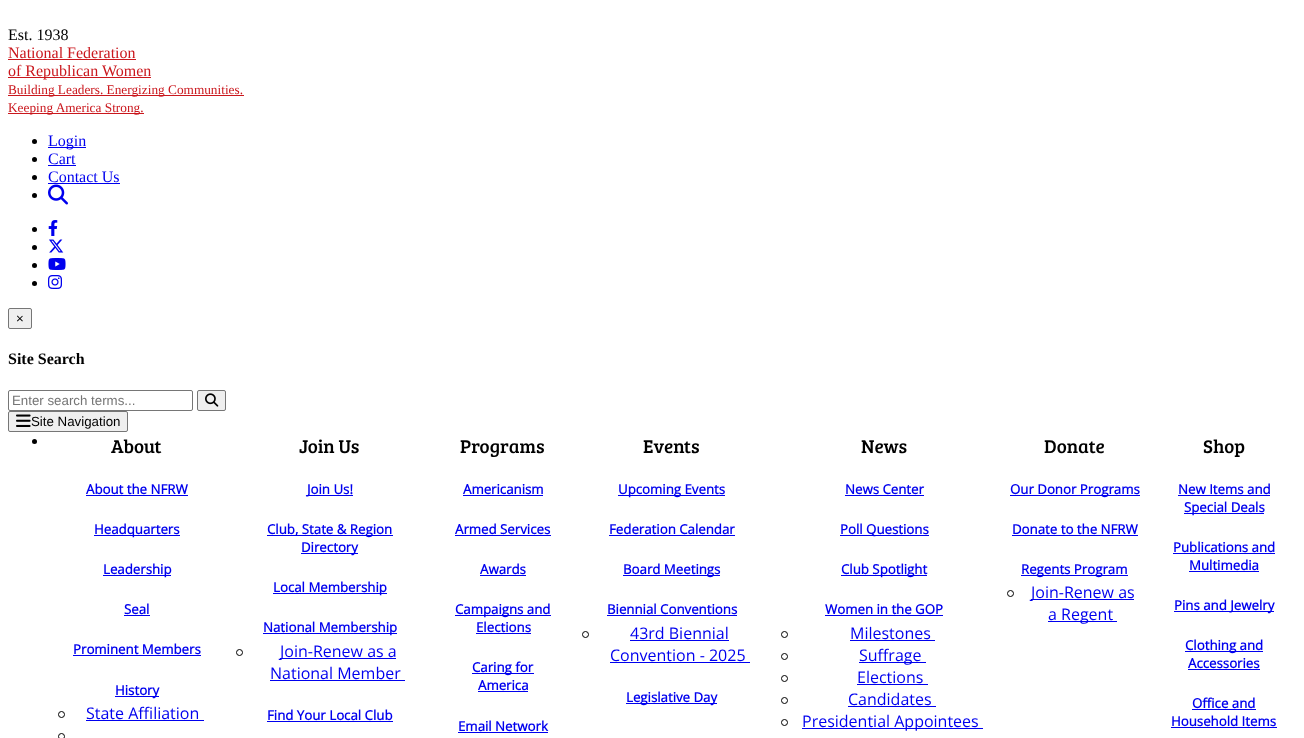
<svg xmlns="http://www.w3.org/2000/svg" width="1304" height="738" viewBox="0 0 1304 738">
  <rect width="100%" height="100%" fill="#ffffff"/>
  <text x="8" y="40" font-family="Liberation Serif" font-size="16" fill="#000000">Est. 1938</text>
  <text x="8" y="58" font-family="Liberation Serif" font-size="16" fill="#ca171d">National Federation</text>
  <rect x="8" y="59" width="128" height="1" fill="#ca171d"/>
  <rect x="8" y="77" width="143" height="1" fill="#ca171d"/>
  <text x="8" y="76" font-family="Liberation Serif" font-size="16" fill="#ca171d">of Republican Women</text>
  <rect x="8" y="95" width="236" height="1" fill="#ca171d"/>
  <text x="8" y="94" font-family="Liberation Serif" font-size="13.3" fill="#ca171d">Building Leaders. Energizing Communities.</text>
  <rect x="8" y="113" width="136" height="1" fill="#ca171d"/>
  <text x="8" y="112" font-family="Liberation Serif" font-size="13.3" fill="#ca171d">Keeping America Strong.</text>
  <circle cx="34.5" cy="141.5" r="2.5" fill="#000000"/>
  <rect x="48" y="147" width="38" height="1" fill="#0000ee"/>
  <text x="48" y="146" font-family="Liberation Serif" font-size="16" fill="#0000ee">Login</text>
  <circle cx="34.5" cy="159.5" r="2.5" fill="#000000"/>
  <text x="48" y="164" font-family="Liberation Serif" font-size="16" fill="#0000ee">Cart</text>
  <rect x="48" y="165" width="28" height="1" fill="#0000ee"/>
  <circle cx="34.5" cy="177.5" r="2.5" fill="#000000"/>
  <text x="48" y="182" font-family="Liberation Serif" font-size="16" fill="#0000ee">Contact Us</text>
  <rect x="48" y="183" width="72" height="1" fill="#0000ee"/>
  <circle cx="34.5" cy="195.5" r="2.5" fill="#000000"/>
  <image x="48" y="184" width="20" height="21" href="img1.png"/>
  <circle cx="34.5" cy="229.5" r="2.5" fill="#000000"/>
  <image x="48" y="220" width="10" height="16" href="img2.png"/>
  <circle cx="34.5" cy="247.5" r="2.5" fill="#000000"/>
  <image x="49" y="239" width="15" height="14" href="img3.png"/>
  <circle cx="34.5" cy="265.5" r="2.5" fill="#000000"/>
  <image x="48" y="258" width="18" height="12" href="img4.png"/>
  <circle cx="34.5" cy="283.5" r="2.5" fill="#000000"/>
  <image x="48" y="275" width="14" height="14" href="img5.png"/>
  <rect x="8.5" y="308.5" width="23" height="20" rx="1.5" fill="#efefef" stroke="#767676"/>
  <text x="16" y="323" font-family="Liberation Sans" font-size="13.3" fill="#000000">×</text>
  <text x="8" y="364" font-family="Liberation Serif" font-size="16" font-weight="bold" fill="#000000">Site Search</text>
  <rect x="8.5" y="390.5" width="184" height="20" rx="1.5" fill="none" stroke="#767676"/>
  <text x="12" y="405" font-family="Liberation Sans" font-size="13.3" fill="#757575">Enter search terms...</text>
  <rect x="197.5" y="390.5" width="28" height="20" rx="1.5" fill="#efefef" stroke="#767676"/>
  <image x="205" y="393" width="14" height="14" href="img6.png"/>
  <rect x="8.5" y="411.5" width="119" height="20" rx="1.5" fill="#efefef" stroke="#767676"/>
  <image x="16" y="414" width="15" height="13" href="img7.png"/>
  <text x="31" y="426" font-family="Liberation Sans" font-size="13.3" fill="#000000">Site Navigation</text>
  <circle cx="34.5" cy="441.5" r="2.5" fill="#000000"/>
  <text x="111" y="453" font-family="Bree Serif" font-size="19" fill="#000000">About</text>
  <text x="86" y="494" font-family="Open Sans" font-size="13.25" font-weight="bold" fill="#0000ee">About the NFRW</text>
  <rect x="86" y="495" width="102" height="1" fill="#0000ee"/>
  <rect x="94" y="535" width="86" height="1" fill="#0000ee"/>
  <text x="94" y="534" font-family="Open Sans" font-size="13.25" font-weight="bold" fill="#0000ee">Headquarters</text>
  <rect x="103" y="575" width="68" height="1" fill="#0000ee"/>
  <text x="103" y="574" font-family="Open Sans" font-size="13.25" font-weight="bold" fill="#0000ee">Leadership</text>
  <text x="124" y="614" font-family="Open Sans" font-size="13.25" font-weight="bold" fill="#0000ee">Seal</text>
  <rect x="124" y="615" width="26" height="1" fill="#0000ee"/>
  <text x="73" y="654" font-family="Open Sans" font-size="13.25" font-weight="bold" fill="#0000ee">Prominent Members</text>
  <rect x="73" y="655" width="128" height="1" fill="#0000ee"/>
  <rect x="115" y="696" width="44" height="1" fill="#0000ee"/>
  <text x="115" y="695" font-family="Open Sans" font-size="13.25" font-weight="bold" fill="#0000ee">History</text>
  <circle cx="61.5" cy="714.5" r="3" fill="none" stroke="#000000"/>
  <text x="86" y="719" font-family="Open Sans" font-size="16" fill="#0000ee">State Affiliation</text>
  <rect x="86" y="720" width="118" height="1" fill="#0000ee"/>
  <circle cx="61.5" cy="736.5" r="3" fill="none" stroke="#000000"/>
  <text x="299" y="453" font-family="Bree Serif" font-size="19" fill="#000000">Join Us</text>
  <rect x="307" y="495" width="46" height="1" fill="#0000ee"/>
  <text x="307" y="494" font-family="Open Sans" font-size="13.25" font-weight="bold" fill="#0000ee">Join Us!</text>
  <rect x="267" y="535" width="126" height="1" fill="#0000ee"/>
  <text x="267" y="534" font-family="Open Sans" font-size="13.25" font-weight="bold" fill="#0000ee">Club, State &amp; Region</text>
  <rect x="301" y="553" width="57" height="1" fill="#0000ee"/>
  <text x="301" y="552" font-family="Open Sans" font-size="13.25" font-weight="bold" fill="#0000ee">Directory</text>
  <rect x="273" y="593" width="114" height="1" fill="#0000ee"/>
  <text x="273" y="592" font-family="Open Sans" font-size="13.25" font-weight="bold" fill="#0000ee">Local Membership</text>
  <rect x="263" y="633" width="134" height="1" fill="#0000ee"/>
  <text x="263" y="632" font-family="Open Sans" font-size="13.25" font-weight="bold" fill="#0000ee">National Membership</text>
  <circle cx="239.5" cy="652.5" r="3" fill="none" stroke="#000000"/>
  <rect x="280" y="658" width="116" height="1" fill="#0000ee"/>
  <text x="280" y="657" font-family="Open Sans" font-size="16" fill="#0000ee">Join-Renew as a</text>
  <text x="270" y="679" font-family="Open Sans" font-size="16" fill="#0000ee">National Member</text>
  <rect x="270" y="680" width="135" height="1" fill="#0000ee"/>
  <text x="267" y="720" font-family="Open Sans" font-size="13.25" font-weight="bold" fill="#0000ee">Find Your Local Club</text>
  <rect x="267" y="721" width="126" height="1" fill="#0000ee"/>
  <text x="460" y="453" font-family="Bree Serif" font-size="19" fill="#000000">Programs</text>
  <text x="463" y="494" font-family="Open Sans" font-size="13.25" font-weight="bold" fill="#0000ee">Americanism</text>
  <rect x="463" y="495" width="80" height="1" fill="#0000ee"/>
  <text x="455" y="534" font-family="Open Sans" font-size="13.25" font-weight="bold" fill="#0000ee">Armed Services</text>
  <rect x="455" y="535" width="96" height="1" fill="#0000ee"/>
  <text x="480" y="574" font-family="Open Sans" font-size="13.25" font-weight="bold" fill="#0000ee">Awards</text>
  <rect x="480" y="575" width="46" height="1" fill="#0000ee"/>
  <rect x="455" y="615" width="96" height="1" fill="#0000ee"/>
  <text x="455" y="614" font-family="Open Sans" font-size="13.25" font-weight="bold" fill="#0000ee">Campaigns and</text>
  <text x="476" y="632" font-family="Open Sans" font-size="13.25" font-weight="bold" fill="#0000ee">Elections</text>
  <rect x="476" y="633" width="55" height="1" fill="#0000ee"/>
  <rect x="472" y="673" width="62" height="1" fill="#0000ee"/>
  <text x="472" y="672" font-family="Open Sans" font-size="13.25" font-weight="bold" fill="#0000ee">Caring for</text>
  <text x="478" y="690" font-family="Open Sans" font-size="13.25" font-weight="bold" fill="#0000ee">America</text>
  <rect x="478" y="691" width="50" height="1" fill="#0000ee"/>
  <text x="458" y="731" font-family="Open Sans" font-size="13.25" font-weight="bold" fill="#0000ee">Email Network</text>
  <rect x="458" y="732" width="90" height="1" fill="#0000ee"/>
  <text x="643" y="453" font-family="Bree Serif" font-size="19" fill="#000000">Events</text>
  <rect x="618" y="495" width="107" height="1" fill="#0000ee"/>
  <text x="618" y="494" font-family="Open Sans" font-size="13.25" font-weight="bold" fill="#0000ee">Upcoming Events</text>
  <text x="609" y="534" font-family="Open Sans" font-size="13.25" font-weight="bold" fill="#0000ee">Federation Calendar</text>
  <rect x="609" y="535" width="126" height="1" fill="#0000ee"/>
  <rect x="623" y="575" width="97" height="1" fill="#0000ee"/>
  <text x="623" y="574" font-family="Open Sans" font-size="13.25" font-weight="bold" fill="#0000ee">Board Meetings</text>
  <text x="607" y="614" font-family="Open Sans" font-size="13.25" font-weight="bold" fill="#0000ee">Biennial Conventions</text>
  <rect x="607" y="615" width="130" height="1" fill="#0000ee"/>
  <circle cx="585.5" cy="634.5" r="3" fill="none" stroke="#000000"/>
  <text x="630" y="639" font-family="Open Sans" font-size="16" fill="#0000ee">43rd Biennial</text>
  <rect x="630" y="640" width="99" height="1" fill="#0000ee"/>
  <text x="610" y="661" font-family="Open Sans" font-size="16" fill="#0000ee">Convention - 2025</text>
  <rect x="610" y="662" width="140" height="1" fill="#0000ee"/>
  <rect x="626" y="703" width="91" height="1" fill="#0000ee"/>
  <text x="626" y="702" font-family="Open Sans" font-size="13.25" font-weight="bold" fill="#0000ee">Legislative Day</text>
  <text x="861" y="453" font-family="Bree Serif" font-size="19" fill="#000000">News</text>
  <text x="845" y="494" font-family="Open Sans" font-size="13.25" font-weight="bold" fill="#0000ee">News Center</text>
  <rect x="845" y="495" width="79" height="1" fill="#0000ee"/>
  <rect x="840" y="535" width="89" height="1" fill="#0000ee"/>
  <text x="840" y="534" font-family="Open Sans" font-size="13.25" font-weight="bold" fill="#0000ee">Poll Questions</text>
  <rect x="841" y="575" width="86" height="1" fill="#0000ee"/>
  <text x="841" y="574" font-family="Open Sans" font-size="13.25" font-weight="bold" fill="#0000ee">Club Spotlight</text>
  <text x="825" y="614" font-family="Open Sans" font-size="13.25" font-weight="bold" fill="#0000ee">Women in the GOP</text>
  <rect x="825" y="615" width="118" height="1" fill="#0000ee"/>
  <circle cx="784.5" cy="634.5" r="3" fill="none" stroke="#000000"/>
  <text x="850" y="639" font-family="Open Sans" font-size="16" fill="#0000ee">Milestones</text>
  <rect x="850" y="640" width="85" height="1" fill="#0000ee"/>
  <circle cx="784.5" cy="656.5" r="3" fill="none" stroke="#000000"/>
  <rect x="859" y="662" width="67" height="1" fill="#0000ee"/>
  <text x="859" y="661" font-family="Open Sans" font-size="16" fill="#0000ee">Suffrage</text>
  <circle cx="784.5" cy="678.5" r="3" fill="none" stroke="#000000"/>
  <text x="857" y="683" font-family="Open Sans" font-size="16" fill="#0000ee">Elections</text>
  <rect x="857" y="684" width="71" height="1" fill="#0000ee"/>
  <circle cx="784.5" cy="700.5" r="3" fill="none" stroke="#000000"/>
  <text x="848" y="705" font-family="Open Sans" font-size="16" fill="#0000ee">Candidates</text>
  <rect x="848" y="706" width="88" height="1" fill="#0000ee"/>
  <circle cx="784.5" cy="722.5" r="3" fill="none" stroke="#000000"/>
  <rect x="802" y="728" width="181" height="1" fill="#0000ee"/>
  <text x="802" y="727" font-family="Open Sans" font-size="16" fill="#0000ee">Presidential Appointees</text>
  <text x="1044" y="453" font-family="Bree Serif" font-size="19" fill="#000000">Donate</text>
  <rect x="1010" y="495" width="130" height="1" fill="#0000ee"/>
  <text x="1010" y="494" font-family="Open Sans" font-size="13.25" font-weight="bold" fill="#0000ee">Our Donor Programs</text>
  <text x="1012" y="534" font-family="Open Sans" font-size="13.25" font-weight="bold" fill="#0000ee">Donate to the NFRW</text>
  <rect x="1012" y="535" width="126" height="1" fill="#0000ee"/>
  <rect x="1021" y="575" width="107" height="1" fill="#0000ee"/>
  <text x="1021" y="574" font-family="Open Sans" font-size="13.25" font-weight="bold" fill="#0000ee">Regents Program</text>
  <circle cx="1010.5" cy="593.5" r="3" fill="none" stroke="#000000"/>
  <rect x="1031" y="599" width="103" height="1" fill="#0000ee"/>
  <text x="1031" y="598" font-family="Open Sans" font-size="16" fill="#0000ee">Join-Renew as</text>
  <rect x="1048" y="621" width="69" height="1" fill="#0000ee"/>
  <text x="1048" y="620" font-family="Open Sans" font-size="16" fill="#0000ee">a Regent</text>
  <text x="1203" y="453" font-family="Bree Serif" font-size="19" fill="#000000">Shop</text>
  <text x="1178" y="494" font-family="Open Sans" font-size="13.25" font-weight="bold" fill="#0000ee">New Items and</text>
  <rect x="1178" y="495" width="92" height="1" fill="#0000ee"/>
  <rect x="1184" y="513" width="80" height="1" fill="#0000ee"/>
  <text x="1184" y="512" font-family="Open Sans" font-size="13.25" font-weight="bold" fill="#0000ee">Special Deals</text>
  <text x="1173" y="552" font-family="Open Sans" font-size="13.25" font-weight="bold" fill="#0000ee">Publications and</text>
  <rect x="1173" y="553" width="102" height="1" fill="#0000ee"/>
  <text x="1189" y="570" font-family="Open Sans" font-size="13.25" font-weight="bold" fill="#0000ee">Multimedia</text>
  <rect x="1189" y="571" width="70" height="1" fill="#0000ee"/>
  <rect x="1174" y="611" width="100" height="1" fill="#0000ee"/>
  <text x="1174" y="610" font-family="Open Sans" font-size="13.25" font-weight="bold" fill="#0000ee">Pins and Jewelry</text>
  <rect x="1185" y="651" width="78" height="1" fill="#0000ee"/>
  <text x="1185" y="650" font-family="Open Sans" font-size="13.25" font-weight="bold" fill="#0000ee">Clothing and</text>
  <text x="1188" y="668" font-family="Open Sans" font-size="13.25" font-weight="bold" fill="#0000ee">Accessories</text>
  <rect x="1188" y="669" width="72" height="1" fill="#0000ee"/>
  <text x="1192" y="708" font-family="Open Sans" font-size="13.25" font-weight="bold" fill="#0000ee">Office and</text>
  <rect x="1192" y="709" width="64" height="1" fill="#0000ee"/>
  <text x="1171" y="726" font-family="Open Sans" font-size="13.25" font-weight="bold" fill="#0000ee">Household Items</text>
  <rect x="1171" y="727" width="106" height="1" fill="#0000ee"/>
</svg>
